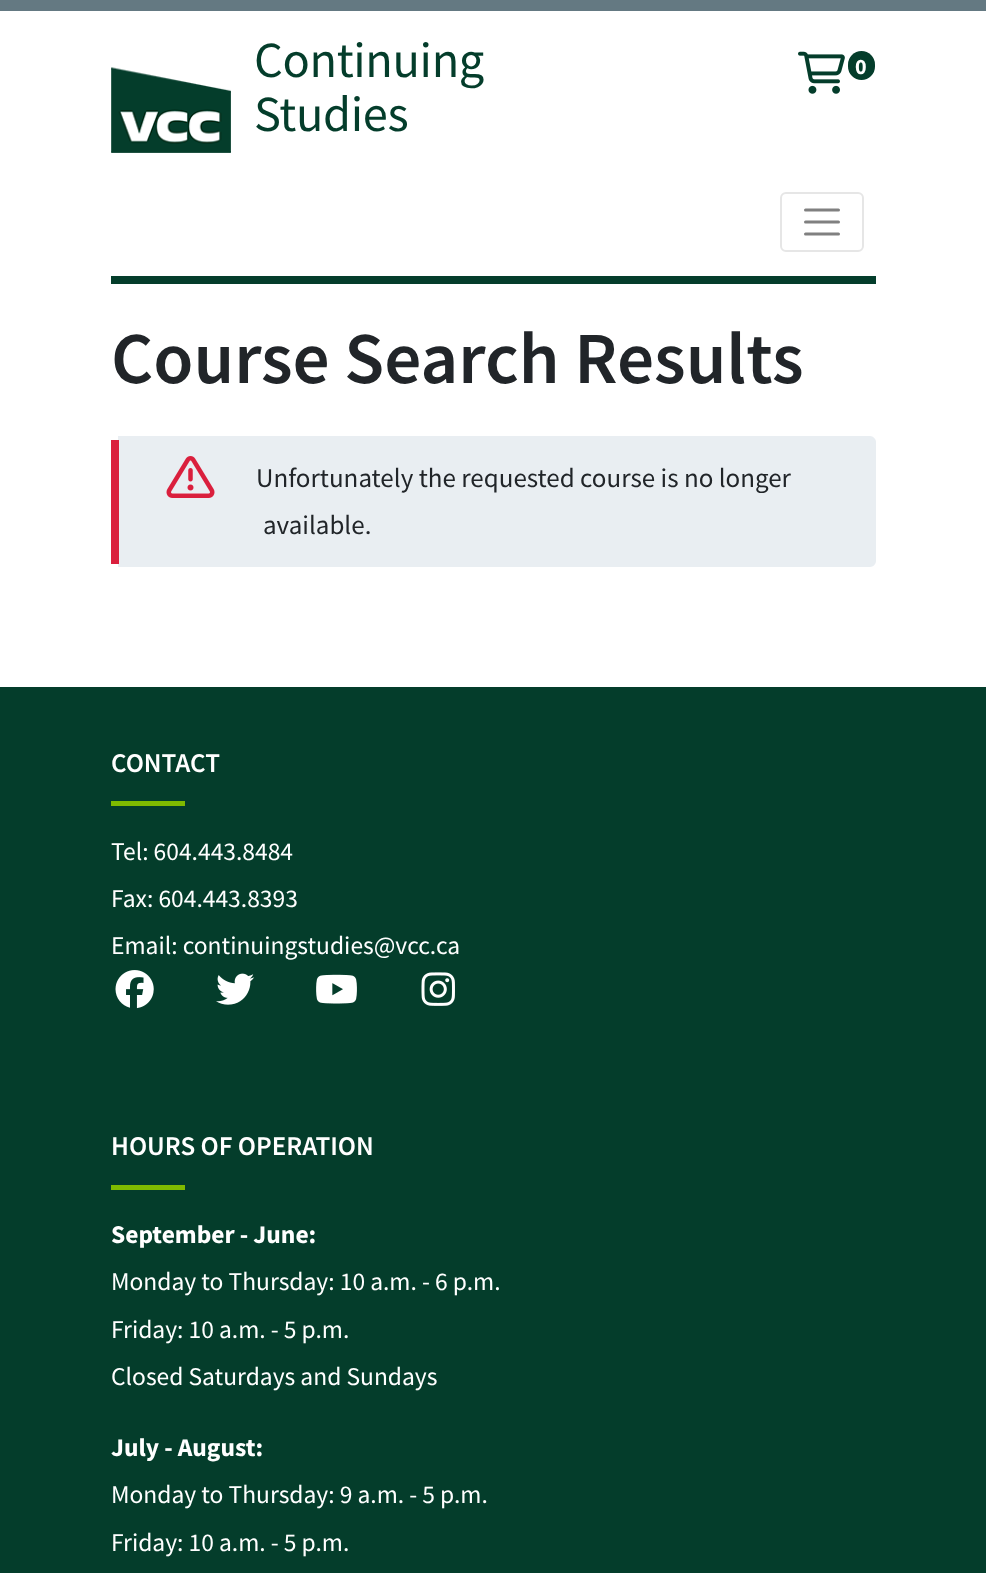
<svg xmlns="http://www.w3.org/2000/svg" width="986" height="1573" viewBox="0 0 986 1573">
  <rect width="100%" height="100%" fill="#ffffff"/>
  <rect x="0" y="0" width="986" height="11" fill="#647982"/>
  <image x="111" y="67" width="120" height="86" href="img1.png"/>
  <text x="254" y="77" font-family="Source Sans Pro" font-size="50.5" letter-spacing="-0.4" fill="#043d2b">Continuing</text>
  <text x="254" y="131" font-family="Source Sans Pro" font-size="50.5" letter-spacing="-0.4" fill="#043d2b">Studies</text>
  <image x="798" y="51" width="47" height="43" href="img2.png"/>
  <rect x="848" y="51" width="27" height="29" rx="13.5" fill="#043d2b"/>
  <text x="855" y="74" font-family="Source Sans Pro" font-size="22" font-weight="bold" fill="#ffffff">0</text>
  <rect x="111" y="276" width="765" height="8" fill="#043d2b"/>
  <rect x="781" y="193" width="82" height="58" rx="5" fill="none" stroke="#e6e6e6" stroke-width="2"/>
  <path d="M805.5 210H838.5M805.5 222H838.5M805.5 234H838.5" fill="none" stroke="#808080" stroke-width="3" stroke-linecap="round"/>
  <text x="111" y="383" font-family="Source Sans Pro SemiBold" font-size="73.25" font-weight="600" fill="#212529">Course Search Results</text>
  <path d="M118 436H870C873 436 876 439 876 442V561C876 564 873 567 870 567H118Z" fill="#e9eef2"/>
  <rect x="111" y="440" width="8" height="124" fill="#da1f3d"/>
  <image x="166" y="456" width="49" height="42" href="img3.png"/>
  <text x="256" y="487" font-family="Source Sans Pro" font-size="27" fill="#212529">Unfortunately the requested course is no longer</text>
  <text x="263" y="534" font-family="Source Sans Pro" font-size="27" fill="#212529">available.</text>
  <rect x="0" y="687" width="986" height="886" fill="#043d2b"/>
  <text x="111" y="772" font-family="Source Sans Pro SemiBold" font-size="27" font-weight="600" fill="#ffffff">CONTACT</text>
  <rect x="111" y="801" width="74" height="5" fill="#7fba00"/>
  <text x="111" y="860" font-family="Source Sans Pro" font-size="25.5" fill="#ffffff">Tel: 604.443.8484</text>
  <text x="111" y="907" font-family="Source Sans Pro" font-size="25.5" fill="#ffffff">Fax: 604.443.8393</text>
  <text x="111" y="954" font-family="Source Sans Pro" font-size="25.5" fill="#ffffff">Email: continuingstudies@vcc.ca</text>
  <image x="115" y="970" width="39" height="39" href="img4.png"/>
  <image x="216" y="973" width="39" height="32" href="img5.png"/>
  <image x="316" y="974" width="41" height="30" href="img6.png"/>
  <image x="421" y="972" width="34" height="34" href="img7.png"/>
  <text x="111" y="1155" font-family="Source Sans Pro SemiBold" font-size="27" font-weight="600" fill="#ffffff">HOURS OF OPERATION</text>
  <rect x="111" y="1185" width="74" height="5" fill="#7fba00"/>
  <text x="111" y="1243" font-family="Source Sans Pro" font-size="25.5" font-weight="bold" fill="#ffffff">September - June:</text>
  <text x="111" y="1290" font-family="Source Sans Pro" font-size="25.5" fill="#ffffff">Monday to Thursday: 10 a.m. - 6 p.m.</text>
  <text x="111" y="1338" font-family="Source Sans Pro" font-size="25.5" fill="#ffffff">Friday: 10 a.m. - 5 p.m.</text>
  <text x="111" y="1385" font-family="Source Sans Pro" font-size="25.5" fill="#ffffff">Closed Saturdays and Sundays</text>
  <text x="111" y="1456" font-family="Source Sans Pro" font-size="25.5" font-weight="bold" fill="#ffffff">July - August:</text>
  <text x="111" y="1503" font-family="Source Sans Pro" font-size="25.5" fill="#ffffff">Monday to Thursday: 9 a.m. - 5 p.m.</text>
  <text x="111" y="1551" font-family="Source Sans Pro" font-size="25.5" fill="#ffffff">Friday: 10 a.m. - 5 p.m.</text>
</svg>
